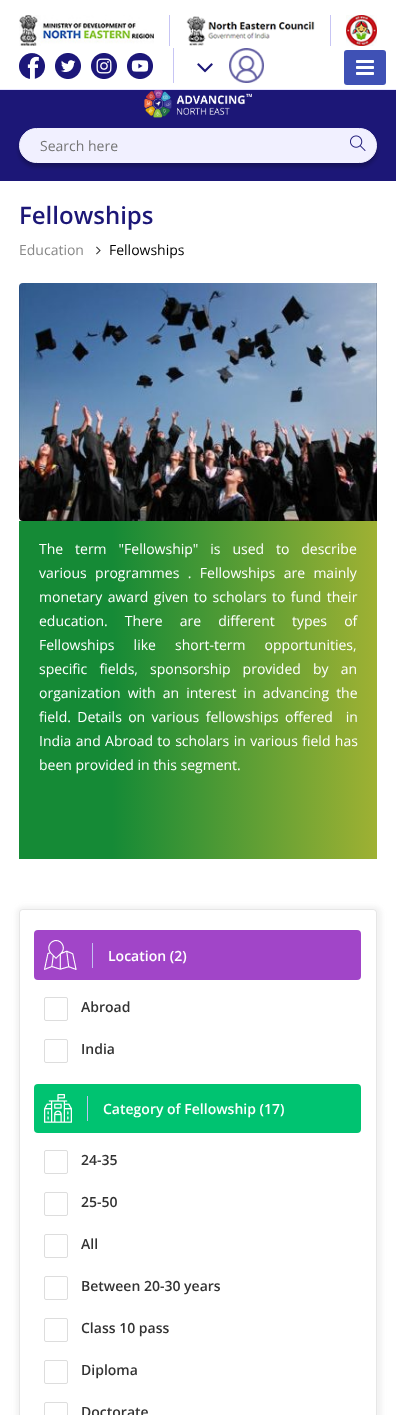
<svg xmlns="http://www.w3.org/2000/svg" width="396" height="1415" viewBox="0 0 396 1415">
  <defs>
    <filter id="blur1" x="-50%" y="-200%" width="200%" height="500%"><feGaussianBlur stdDeviation="2"/></filter>
    <linearGradient id="g1" gradientUnits="userSpaceOnUse" x1="19" y1="690" x2="377" y2="690"><stop offset="0.26" stop-color="#158a36"/><stop offset="1" stop-color="#9fb133"/></linearGradient>
  </defs>
  <rect width="100%" height="100%" fill="#ffffff"/>
  <rect x="0" y="89" width="396" height="1" fill="#e6e4ff"/>
  <rect x="169" y="15" width="1" height="31" fill="#c7c5f4"/>
  <image x="19" y="15" width="135" height="31" href="img1.png"/>
  <rect x="330" y="15" width="1" height="31" fill="#c7c5f4"/>
  <image x="186" y="16" width="129" height="30" href="img2.png"/>
  <image x="346" y="15" width="31" height="31" href="img3.png"/>
  <image x="19" y="53" width="26" height="26" href="img4.png"/>
  <image x="55" y="53" width="26" height="26" href="img5.png"/>
  <image x="91" y="53" width="26" height="26" href="img6.png"/>
  <image x="127" y="53" width="26" height="26" href="img7.png"/>
  <rect x="173" y="48" width="1" height="35" fill="#c7c5f4"/>
  <image x="197" y="63" width="16" height="10" href="img8.png"/>
  <image x="229" y="48" width="35" height="35" href="img9.png"/>
  <rect x="344" y="50" width="42" height="35" rx="3" fill="#3f51b5"/>
  <image x="356" y="60" width="18" height="15" href="img10.png"/>
  <rect x="0" y="90" width="396" height="91" fill="#1c1777"/>
  <image x="144" y="90" width="108" height="28" href="img11.png"/>
  <rect x="19" y="132" width="358" height="35" rx="17.5" fill="#000000" fill-opacity="0.25" filter="url(#blur1)"/>
  <rect x="19.5" y="128.5" width="357" height="34" rx="17" fill="#f1f0ff" stroke="#f1f0ff"/>
  <text x="40" y="151" font-family="Open Sans" font-size="14" fill="#757575">Search here</text>
  <image x="350" y="135" width="16" height="16" href="img12.png"/>
  <text x="19" y="224" font-family="Open Sans" font-size="24" font-weight="600" fill="#1c1777">Fellowships</text>
  <text x="19" y="255" font-family="Open Sans" font-size="14" fill="#888888">Education</text>
  <image x="96" y="246" width="5" height="9" href="img13.png"/>
  <text x="109" y="255" font-family="Open Sans" font-size="14" fill="#000000">Fellowships</text>
  <image x="19" y="283" width="358" height="238" href="img14.png"/>
  <rect x="19" y="521" width="358" height="338" fill="url(#g1)"/>
  <text x="39" y="554" word-spacing="8.25" font-family="Open Sans" font-size="14" fill="#ffffff">The term "Fellowship" is used to describe</text>
  <text x="39" y="578" word-spacing="4.75" font-family="Open Sans" font-size="14" fill="#ffffff">various programmes . Fellowships are mainly</text>
  <text x="39" y="602" word-spacing="1.75" font-family="Open Sans" font-size="14" fill="#ffffff">monetary award given to scholars to fund their</text>
  <text x="39" y="626" word-spacing="13.5" font-family="Open Sans" font-size="14" fill="#ffffff">education. There are different types of</text>
  <text x="39" y="650" word-spacing="15.5" font-family="Open Sans" font-size="14" fill="#ffffff">Fellowships like short-term opportunities,</text>
  <text x="39" y="674" word-spacing="8.5" font-family="Open Sans" font-size="14" fill="#ffffff">specific fields, sponsorship provided by an</text>
  <text x="39" y="698" word-spacing="3.5" font-family="Open Sans" font-size="14" fill="#ffffff">organization with an interest in advancing the</text>
  <text x="39" y="722" word-spacing="2.75" font-family="Open Sans" font-size="14" fill="#ffffff" xml:space="preserve">field. Details on various fellowships offered  in</text>
  <text x="39" y="746" word-spacing="0.75" font-family="Open Sans" font-size="14" fill="#ffffff">India and Abroad to scholars in various field has</text>
  <text x="39" y="770" font-family="Open Sans" font-size="14" fill="#ffffff">been provided in this segment.</text>
  <rect x="16" y="906" width="366" height="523" rx="8" fill="#d1d1d1" fill-opacity="0.25" filter="url(#blur1)"/>
  <rect x="19.5" y="909.5" width="357" height="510" rx="3.5" fill="none" stroke="#e6e6e6"/>
  <path d="M23 910H373C374.5 910 376 911.5 376 913V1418H20V913C20 911.5 21.5 910 23 910Z" fill="#ffffff"/>
  <rect x="34" y="930" width="327" height="50" rx="4" fill="#a145c8"/>
  <image x="44" y="940" width="33" height="30" href="img15.png"/>
  <rect x="92" y="943" width="1" height="25" fill="#c3c0f2"/>
  <text x="108" y="961" font-family="Open Sans" font-size="14" font-weight="600" fill="#ffffff">Location (2)</text>
  <rect x="44.5" y="997.5" width="23" height="23" rx="1.5" fill="none" stroke="#dddddd"/>
  <text x="81" y="1012" font-family="Open Sans" font-size="14" font-weight="600" fill="#333333">Abroad</text>
  <rect x="44.5" y="1039.5" width="23" height="23" rx="1.5" fill="none" stroke="#dddddd"/>
  <text x="81" y="1054" font-family="Open Sans" font-size="14" font-weight="600" fill="#333333">India</text>
  <rect x="34" y="1084" width="327" height="49" rx="4" fill="#00c371"/>
  <image x="44" y="1094" width="28" height="29" href="img16.png"/>
  <rect x="87" y="1096" width="1" height="25" fill="#c3c0f2"/>
  <text x="103" y="1114" font-family="Open Sans" font-size="14" font-weight="600" fill="#ffffff">Category of Fellowship (17)</text>
  <rect x="44.5" y="1150.5" width="23" height="23" rx="1.5" fill="none" stroke="#dddddd"/>
  <text x="81" y="1165" font-family="Open Sans" font-size="14" font-weight="600" fill="#333333">24-35</text>
  <rect x="44.5" y="1192.5" width="23" height="23" rx="1.5" fill="none" stroke="#dddddd"/>
  <text x="81" y="1207" font-family="Open Sans" font-size="14" font-weight="600" fill="#333333">25-50</text>
  <rect x="44.5" y="1234.5" width="23" height="23" rx="1.5" fill="none" stroke="#dddddd"/>
  <text x="81" y="1249" font-family="Open Sans" font-size="14" font-weight="600" fill="#333333">All</text>
  <rect x="44.5" y="1276.5" width="23" height="23" rx="1.5" fill="none" stroke="#dddddd"/>
  <text x="81" y="1291" font-family="Open Sans" font-size="14" font-weight="600" fill="#333333">Between 20-30 years</text>
  <rect x="44.5" y="1318.5" width="23" height="23" rx="1.5" fill="none" stroke="#dddddd"/>
  <text x="81" y="1333" font-family="Open Sans" font-size="14" font-weight="600" fill="#333333">Class 10 pass</text>
  <rect x="44.5" y="1360.5" width="23" height="23" rx="1.5" fill="none" stroke="#dddddd"/>
  <text x="81" y="1375" font-family="Open Sans" font-size="14" font-weight="600" fill="#333333">Diploma</text>
  <rect x="44.5" y="1402.5" width="23" height="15" rx="1.5" fill="none" stroke="#dddddd"/>
  <text x="81" y="1417" font-family="Open Sans" font-size="14" font-weight="600" fill="#333333">Doctorate</text>
</svg>
